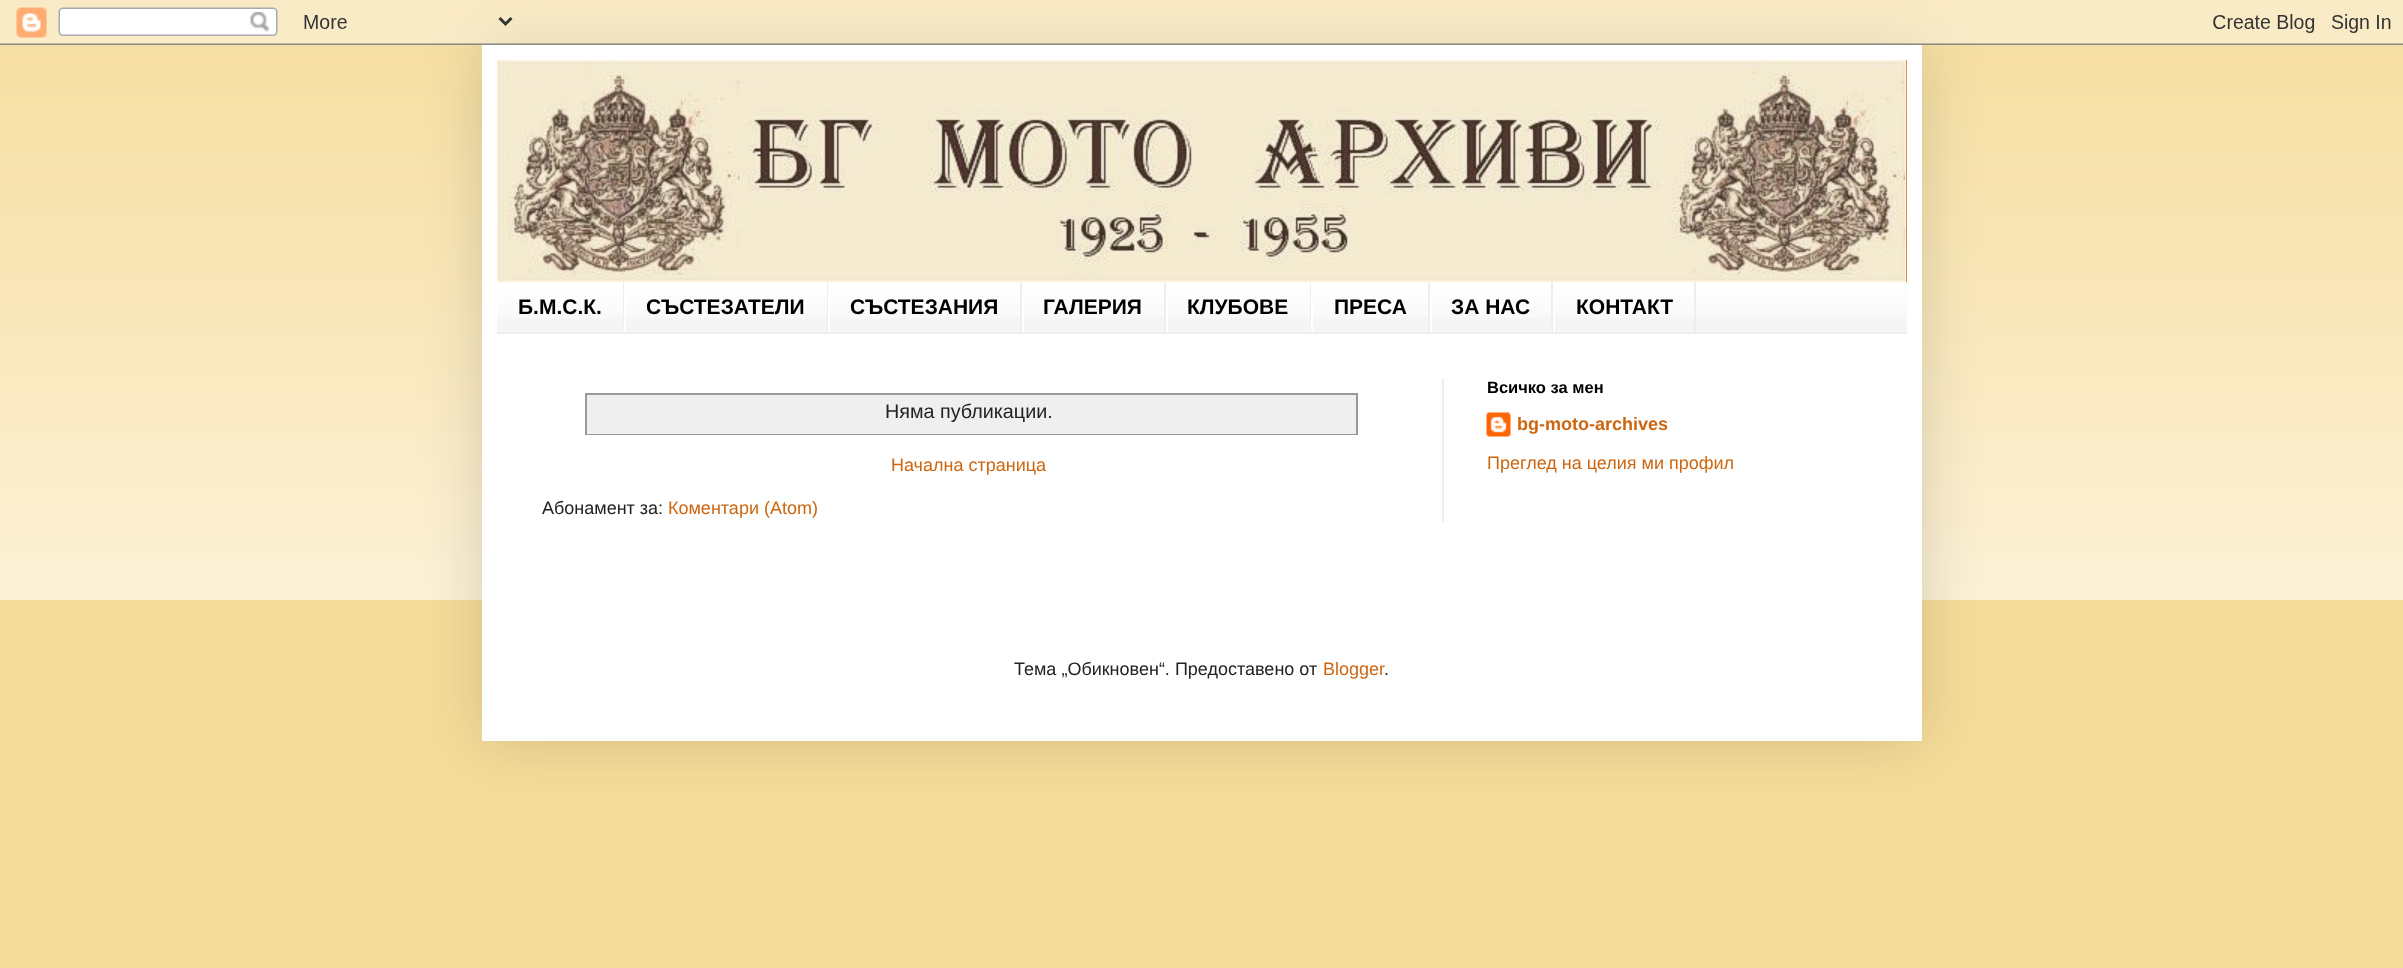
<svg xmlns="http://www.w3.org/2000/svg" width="2403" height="968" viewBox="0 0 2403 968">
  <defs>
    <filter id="blur1" x="-50%" y="-200%" width="200%" height="500%"><feGaussianBlur stdDeviation="30"/></filter>
  </defs>
  <rect width="100%" height="100%" fill="#f6dc99"/>
  <image x="0" y="0" width="2403" height="600" href="img1.png"/>
  <rect x="482" y="45" width="1440" height="696" fill="#000000" fill-opacity="0.15" filter="url(#blur1)"/>
  <image x="0" y="0" width="2403" height="45" href="img2.png"/>
  <rect x="482" y="45" width="1440" height="696" fill="#ffffff"/>
  <rect x="1906" y="60" width="1" height="222" fill="#cc6611"/>
  <image x="1906" y="60" width="1" height="176" href="img3.png"/>
  <image x="496" y="60" width="1411" height="222" href="img4.png"/>
  <rect x="497" y="282" width="1410" height="50" fill="#f5f5f5"/>
  <image x="497" y="282" width="1410" height="36" href="img5.png"/>
  <rect x="497" y="332" width="1410" height="2" fill="#eeeeee"/>
  <rect x="623" y="282" width="1" height="50" fill="#eeeeee"/>
  <text x="518" y="314" font-family="Liberation Sans" font-size="21" font-weight="bold" fill="#000000">Б.М.С.К.</text>
  <rect x="827" y="282" width="1" height="50" fill="#eeeeee"/>
  <rect x="624" y="298" width="2" height="34" fill="#ffffff"/>
  <text x="646" y="314" font-family="Liberation Sans" font-size="21" font-weight="bold" fill="#000000">СЪСТЕЗАТЕЛИ</text>
  <rect x="1020" y="282" width="2" height="50" fill="#eeeeee"/>
  <rect x="828" y="298" width="2" height="34" fill="#ffffff"/>
  <text x="850" y="314" font-family="Liberation Sans" font-size="21" font-weight="bold" fill="#000000">СЪСТЕЗАНИЯ</text>
  <rect x="1164" y="282" width="2" height="50" fill="#eeeeee"/>
  <rect x="1022" y="298" width="2" height="34" fill="#ffffff"/>
  <text x="1043" y="314" font-family="Liberation Sans" font-size="21" font-weight="bold" fill="#000000">ГАЛЕРИЯ</text>
  <rect x="1310" y="282" width="1" height="50" fill="#eeeeee"/>
  <rect x="1166" y="298" width="2" height="34" fill="#ffffff"/>
  <text x="1187" y="314" font-family="Liberation Sans" font-size="21" font-weight="bold" fill="#000000">КЛУБОВЕ</text>
  <rect x="1428" y="282" width="2" height="50" fill="#eeeeee"/>
  <rect x="1311" y="298" width="2" height="34" fill="#ffffff"/>
  <text x="1334" y="314" font-family="Liberation Sans" font-size="21" font-weight="bold" fill="#000000">ПРЕСА</text>
  <rect x="1551" y="282" width="2" height="50" fill="#eeeeee"/>
  <rect x="1430" y="298" width="2" height="34" fill="#ffffff"/>
  <text x="1451" y="314" font-family="Liberation Sans" font-size="21" font-weight="bold" fill="#000000">ЗА НАС</text>
  <rect x="1694" y="282" width="2" height="50" fill="#eeeeee"/>
  <rect x="1553" y="298" width="2" height="34" fill="#ffffff"/>
  <text x="1576" y="314" font-family="Liberation Sans" font-size="21" font-weight="bold" fill="#000000">КОНТАКТ</text>
  <rect x="1442" y="378" width="2" height="144" fill="#eeeeee"/>
  <rect x="586" y="394" width="771" height="40" fill="none" stroke="#999999" stroke-width="2"/>
  <rect x="587" y="395" width="769" height="39" fill="#efefef"/>
  <text x="885" y="418" font-family="Liberation Sans" font-size="19.75" fill="#222222">Няма публикации.</text>
  <text x="891" y="471" font-family="Liberation Sans" font-size="18" fill="#cc6611">Начална страница</text>
  <text x="542" y="514" font-family="Liberation Sans" font-size="18" fill="#222222">Абонамент за:</text>
  <text x="668" y="514" font-family="Liberation Sans" font-size="18" fill="#cc6611">Коментари (Atom)</text>
  <text x="1487" y="393" font-family="Liberation Sans" font-size="16.5" font-weight="bold" fill="#000000">Всичко за мен</text>
  <image x="1486" y="412" width="25" height="25" href="img6.png"/>
  <text x="1517" y="430" font-family="Liberation Sans" font-size="18" font-weight="bold" fill="#cc6611">bg-moto-archives</text>
  <text x="1487" y="469" font-family="Liberation Sans" font-size="18" fill="#cc6611">Преглед на целия ми профил</text>
  <text x="1014" y="675" font-family="Liberation Sans" font-size="18" fill="#222222">Тема „Обикновен“. Предоставено от</text>
  <text x="1323" y="675" font-family="Liberation Sans" font-size="18" fill="#cc6611">Blogger</text>
  <text x="1384" y="675" font-family="Liberation Sans" font-size="18" fill="#222222">.</text>
</svg>
